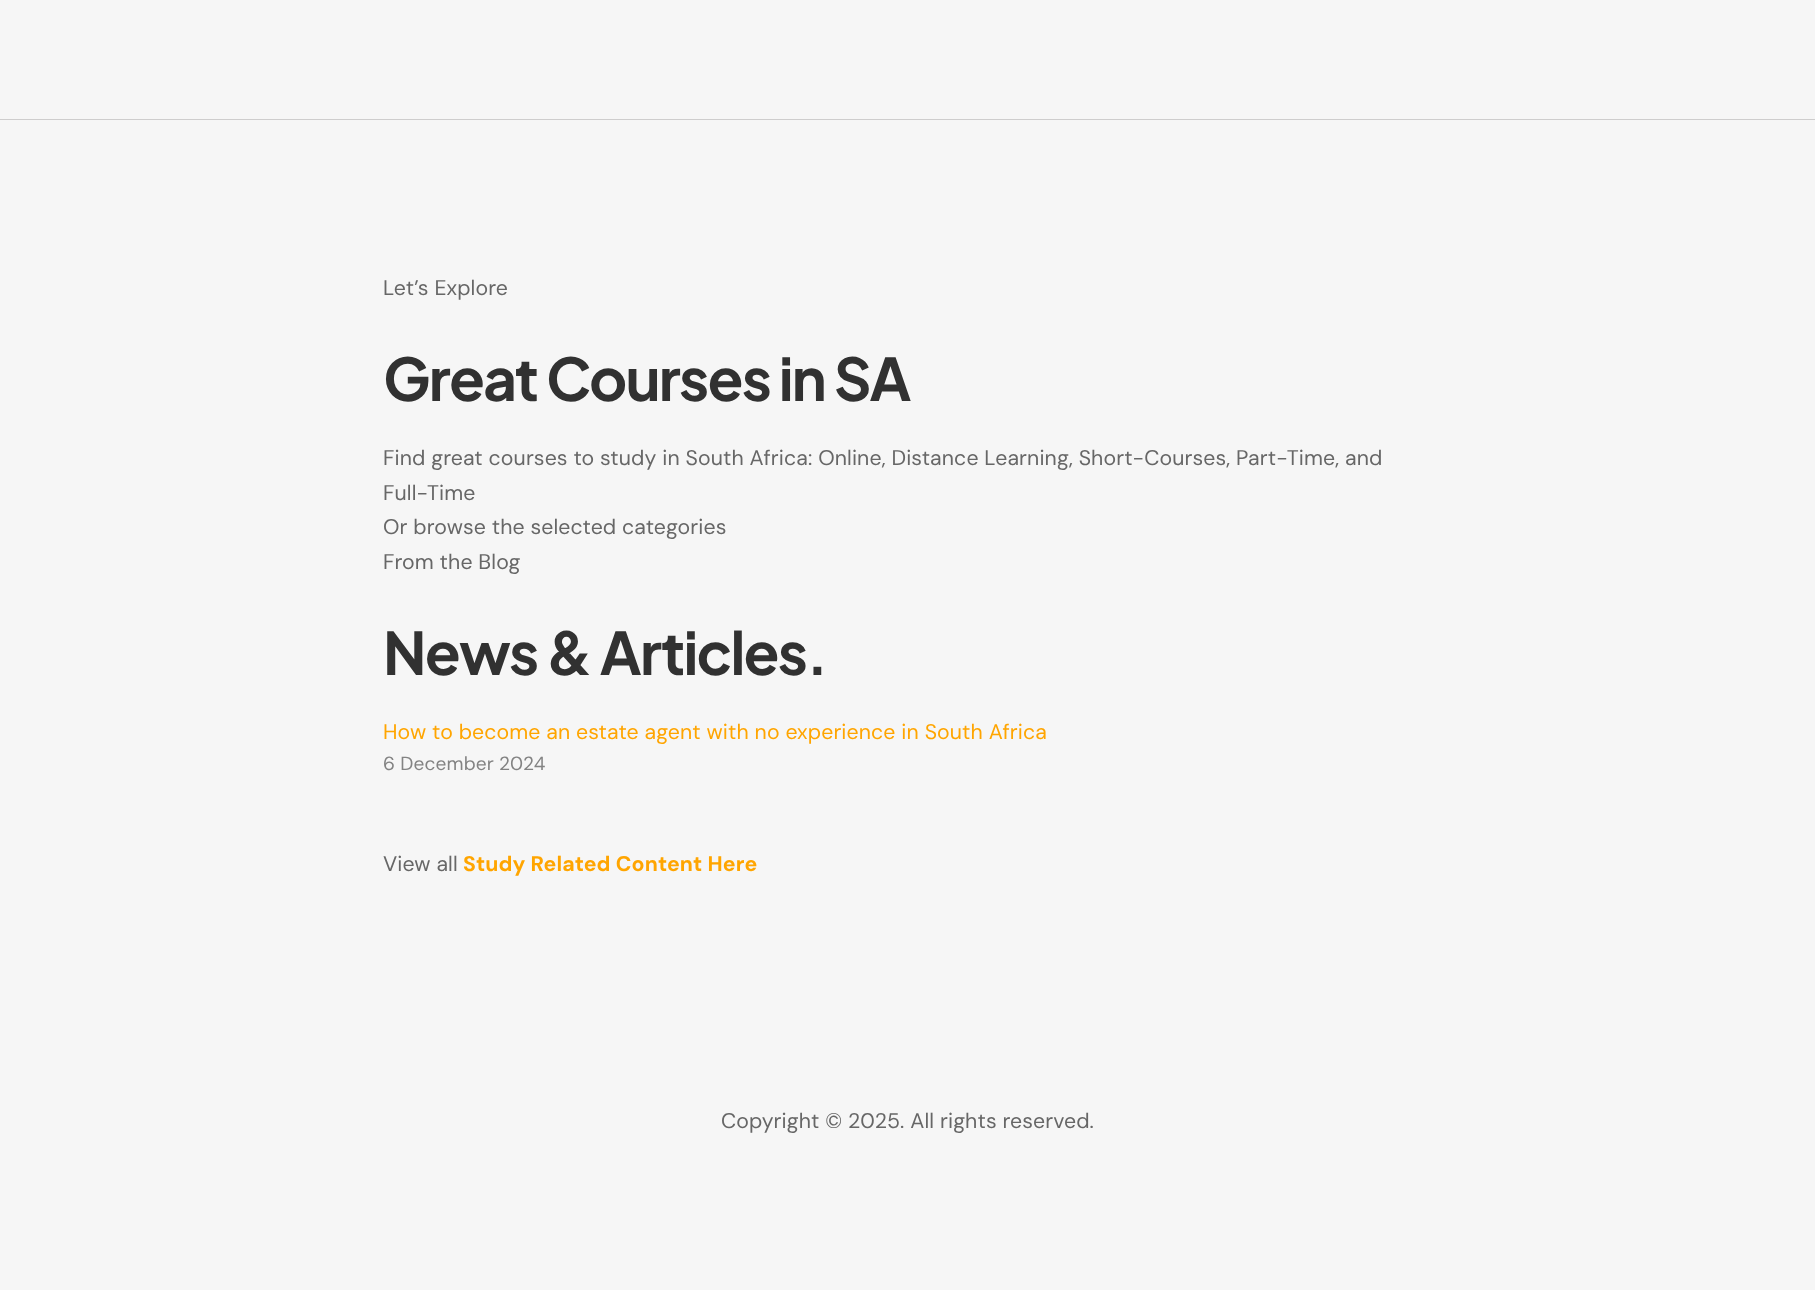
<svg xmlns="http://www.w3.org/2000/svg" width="1815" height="1290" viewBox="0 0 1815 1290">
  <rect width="100%" height="100%" fill="#f6f6f6"/>
  <rect x="0" y="119" width="1815" height="1" fill="#cecdcd"/>
  <text x="383" y="295" font-family="DM Sans" font-size="21.25" letter-spacing="0.12" fill="#676767">Let’s Explore</text>
  <text x="383" y="401" font-family="Plus Jakarta Sans" font-size="58.75" font-weight="bold" letter-spacing="-1.75" fill="#313131">Great Courses in SA</text>
  <text x="383" y="465" font-family="DM Sans" font-size="21.25" letter-spacing="0.12" fill="#676767">Find great courses to study in South Africa: Online, Distance Learning, Short-Courses, Part-Time, and</text>
  <text x="383" y="500" font-family="DM Sans" font-size="21.25" letter-spacing="0.12" fill="#676767">Full-Time</text>
  <text x="383" y="534" font-family="DM Sans" font-size="21.25" letter-spacing="0.12" fill="#676767">Or browse the selected categories</text>
  <text x="383" y="569" font-family="DM Sans" font-size="21.25" letter-spacing="0.12" fill="#676767">From the Blog</text>
  <text x="383" y="675" font-family="Plus Jakarta Sans" font-size="58.75" font-weight="bold" letter-spacing="-1.75" fill="#313131">News &amp; Articles.</text>
  <text x="383" y="739" font-family="DM Sans" font-size="21.25" letter-spacing="0.12" fill="#ffa500">How to become an estate agent with no experience in South Africa</text>
  <text x="383" y="770" font-family="DM Sans" font-size="19.1" letter-spacing="0.12" fill="#838383">6 December 2024</text>
  <text x="383" y="871" font-family="DM Sans" font-size="21.25" letter-spacing="0.12" fill="#676767">View all</text>
  <text x="463" y="871" font-family="DM Sans" font-size="21.25" font-weight="bold" letter-spacing="0.12" fill="#ffa500">Study Related Content Here</text>
  <text x="721" y="1128" font-family="DM Sans" font-size="21.25" letter-spacing="0.12" fill="#676767">Copyright © 2025. All rights reserved.</text>
</svg>
